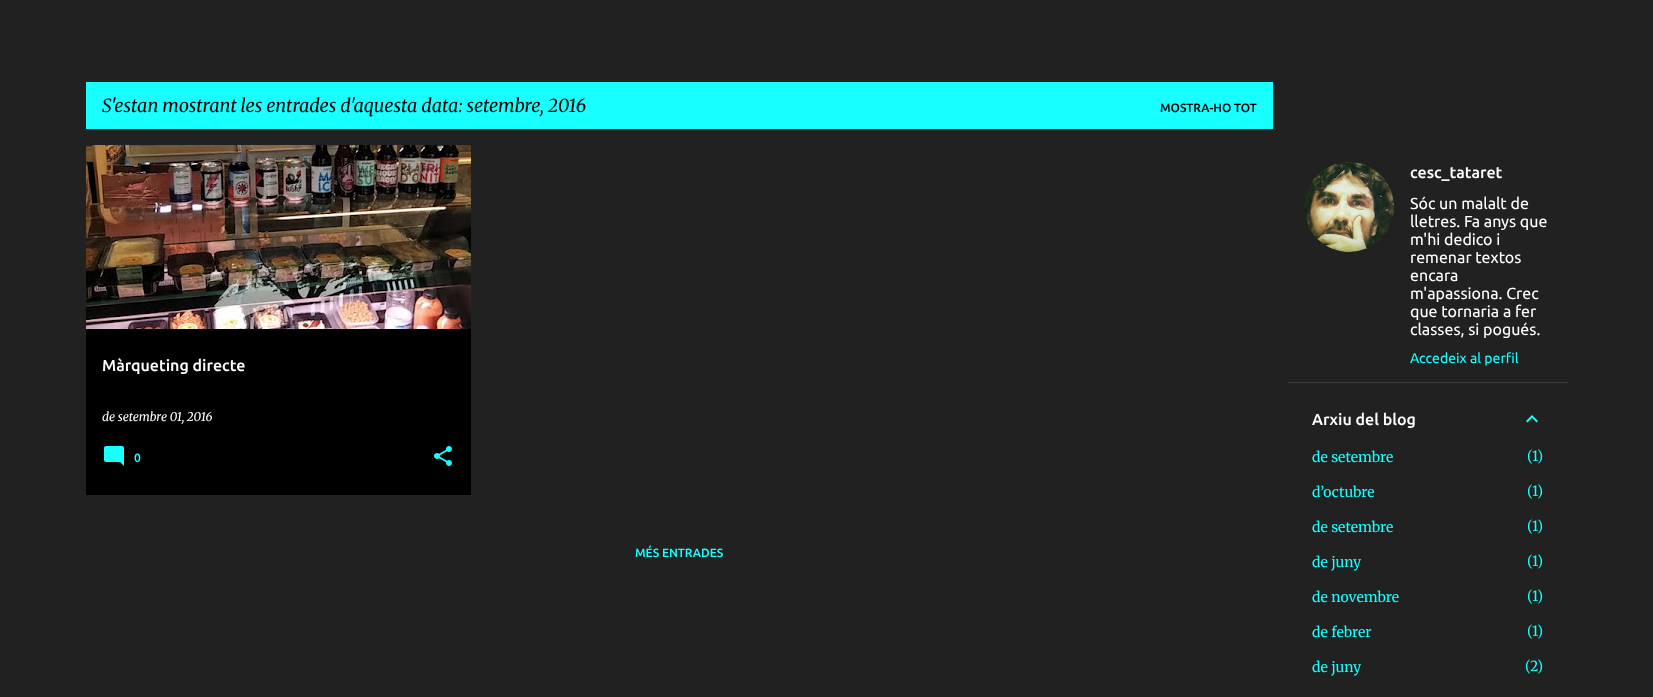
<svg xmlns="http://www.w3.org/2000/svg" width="1653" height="697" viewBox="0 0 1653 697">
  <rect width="100%" height="100%" fill="#212121"/>
  <rect x="86" y="82" width="1187" height="47" fill="#18ffff"/>
  <text x="102" y="112" font-family="Merriweather" font-size="18" font-style="italic" fill="#000000">S'estan mostrant les entrades d'aquesta data: setembre, 2016</text>
  <text x="1160" y="112" font-family="Ubuntu" font-size="12" font-weight="500" fill="#000000">MOSTRA-HO TOT</text>
  <rect x="86" y="329" width="385" height="166" fill="#000000"/>
  <image x="86" y="145" width="385" height="184" href="img1.png"/>
  <text x="102" y="371" font-family="Ubuntu" font-size="16" font-weight="500" fill="#ffffff">Màrqueting directe</text>
  <text x="102" y="421" font-family="Merriweather" font-size="12" font-style="italic" fill="#ffffff">de setembre 01, 2016</text>
  <image x="104" y="446" width="20" height="20" href="img2.png"/>
  <text x="134" y="462" font-family="Ubuntu" font-size="12" font-weight="500" fill="#18ffff">0</text>
  <image x="434" y="446" width="18" height="20" href="img3.png"/>
  <text x="635" y="557" font-family="Ubuntu" font-size="12" font-weight="500" fill="#18ffff">MÉS ENTRADES</text>
  <image x="1304" y="162" width="90" height="90" href="img4.png"/>
  <text x="1410" y="178" font-family="Ubuntu" font-size="16" font-weight="500" fill="#ffffff">cesc_tataret</text>
  <text x="1410" y="209" font-family="Ubuntu" font-size="16" fill="#ffffff">Sóc un malalt de</text>
  <text x="1410" y="227" font-family="Ubuntu" font-size="16" fill="#ffffff">lletres. Fa anys que</text>
  <text x="1410" y="245" font-family="Ubuntu" font-size="16" fill="#ffffff">m'hi dedico i</text>
  <text x="1410" y="263" font-family="Ubuntu" font-size="16" fill="#ffffff">remenar textos</text>
  <text x="1410" y="281" font-family="Ubuntu" font-size="16" fill="#ffffff">encara</text>
  <text x="1410" y="299" font-family="Ubuntu" font-size="16" fill="#ffffff">m'apassiona. Crec</text>
  <text x="1410" y="317" font-family="Ubuntu" font-size="16" fill="#ffffff">que tornaria a fer</text>
  <text x="1410" y="335" font-family="Ubuntu" font-size="16" fill="#ffffff">classes, si pogués.</text>
  <text x="1410" y="363" font-family="Ubuntu" font-size="14" fill="#18ffff">Accedeix al perfil</text>
  <rect x="1288" y="382" width="280" height="1" fill="#3c3c3c"/>
  <text x="1312" y="425" font-family="Ubuntu" font-size="16" font-weight="500" fill="#ffffff">Arxiu del blog</text>
  <image x="1526" y="415" width="12" height="8" href="img5.png"/>
  <text x="1312" y="462" font-family="Merriweather" font-size="14" font-weight="300" fill="#18ffff">de setembre</text>
  <text x="1527" y="461" font-family="Merriweather" font-size="14" font-weight="300" fill="#18ffff">(</text>
  <text x="1532" y="461" font-family="Merriweather" font-size="14" font-weight="300" fill="#18ffff">1</text>
  <text x="1537" y="461" font-family="Merriweather" font-size="14" font-weight="300" fill="#18ffff">)</text>
  <text x="1312" y="497" font-family="Merriweather" font-size="14" font-weight="300" fill="#18ffff">d’octubre</text>
  <text x="1527" y="496" font-family="Merriweather" font-size="14" font-weight="300" fill="#18ffff">(</text>
  <text x="1532" y="496" font-family="Merriweather" font-size="14" font-weight="300" fill="#18ffff">1</text>
  <text x="1537" y="496" font-family="Merriweather" font-size="14" font-weight="300" fill="#18ffff">)</text>
  <text x="1312" y="532" font-family="Merriweather" font-size="14" font-weight="300" fill="#18ffff">de setembre</text>
  <text x="1527" y="531" font-family="Merriweather" font-size="14" font-weight="300" fill="#18ffff">(</text>
  <text x="1532" y="531" font-family="Merriweather" font-size="14" font-weight="300" fill="#18ffff">1</text>
  <text x="1537" y="531" font-family="Merriweather" font-size="14" font-weight="300" fill="#18ffff">)</text>
  <text x="1312" y="567" font-family="Merriweather" font-size="14" font-weight="300" fill="#18ffff">de juny</text>
  <text x="1527" y="566" font-family="Merriweather" font-size="14" font-weight="300" fill="#18ffff">(</text>
  <text x="1532" y="566" font-family="Merriweather" font-size="14" font-weight="300" fill="#18ffff">1</text>
  <text x="1537" y="566" font-family="Merriweather" font-size="14" font-weight="300" fill="#18ffff">)</text>
  <text x="1312" y="602" font-family="Merriweather" font-size="14" font-weight="300" fill="#18ffff">de novembre</text>
  <text x="1527" y="601" font-family="Merriweather" font-size="14" font-weight="300" fill="#18ffff">(</text>
  <text x="1532" y="601" font-family="Merriweather" font-size="14" font-weight="300" fill="#18ffff">1</text>
  <text x="1537" y="601" font-family="Merriweather" font-size="14" font-weight="300" fill="#18ffff">)</text>
  <text x="1312" y="637" font-family="Merriweather" font-size="14" font-weight="300" fill="#18ffff">de febrer</text>
  <text x="1527" y="636" font-family="Merriweather" font-size="14" font-weight="300" fill="#18ffff">(</text>
  <text x="1532" y="636" font-family="Merriweather" font-size="14" font-weight="300" fill="#18ffff">1</text>
  <text x="1537" y="636" font-family="Merriweather" font-size="14" font-weight="300" fill="#18ffff">)</text>
  <text x="1312" y="672" font-family="Merriweather" font-size="14" font-weight="300" fill="#18ffff">de juny</text>
  <text x="1525" y="671" font-family="Merriweather" font-size="14" font-weight="300" fill="#18ffff">(</text>
  <text x="1530" y="671" font-family="Merriweather" font-size="14" font-weight="300" fill="#18ffff">2</text>
  <text x="1537" y="671" font-family="Merriweather" font-size="14" font-weight="300" fill="#18ffff">)</text>
</svg>
